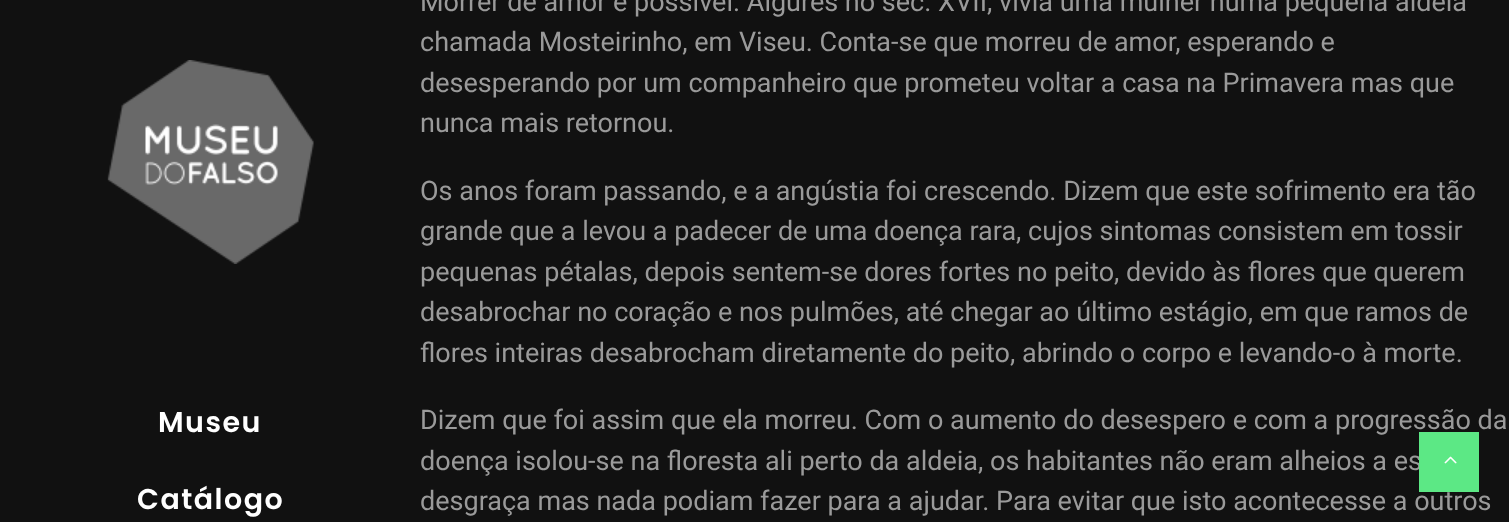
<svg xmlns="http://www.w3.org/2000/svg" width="1509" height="522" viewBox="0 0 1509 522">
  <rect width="100%" height="100%" fill="#111111"/>
  <image x="107" y="60" width="207" height="204" href="img1.png"/>
  <text x="158" y="432" font-family="Poppins" font-size="28.5" font-weight="600" letter-spacing="1.5" fill="#ffffff">Museu</text>
  <text x="137" y="509" font-family="Poppins" font-size="28.5" font-weight="600" letter-spacing="1.5" fill="#ffffff">Catálogo</text>
  <text x="420" y="11" font-family="Roboto" font-size="27" fill="#9a9a9a">Morrer de amor é possível. Algures no séc. XVII, vivia uma mulher numa pequena aldeia</text>
  <text x="420" y="51" font-family="Roboto" font-size="27" fill="#9a9a9a">chamada Mosteirinho, em Viseu. Conta-se que morreu de amor, esperando e</text>
  <text x="420" y="92" font-family="Roboto" font-size="27" fill="#9a9a9a">desesperando por um companheiro que prometeu voltar a casa na Primavera mas que</text>
  <text x="420" y="132" font-family="Roboto" font-size="27" fill="#9a9a9a">nunca mais retornou.</text>
  <text x="420" y="200" font-family="Roboto" font-size="27" fill="#9a9a9a">Os anos foram passando, e a angústia foi crescendo. Dizem que este sofrimento era tão</text>
  <text x="420" y="240" font-family="Roboto" font-size="27" fill="#9a9a9a">grande que a levou a padecer de uma doença rara, cujos sintomas consistem em tossir</text>
  <text x="420" y="281" font-family="Roboto" font-size="27" fill="#9a9a9a">pequenas pétalas, depois sentem-se dores fortes no peito, devido às flores que querem</text>
  <text x="420" y="321" font-family="Roboto" font-size="27" fill="#9a9a9a">desabrochar no coração e nos pulmões, até chegar ao último estágio, em que ramos de</text>
  <text x="420" y="362" font-family="Roboto" font-size="27" fill="#9a9a9a">flores inteiras desabrocham diretamente do peito, abrindo o corpo e levando-o à morte.</text>
  <text x="420" y="429" font-family="Roboto" font-size="27" fill="#9a9a9a">Dizem que foi assim que ela morreu. Com o aumento do desespero e com a progressão da</text>
  <text x="420" y="470" font-family="Roboto" font-size="27" fill="#9a9a9a">doença isolou-se na floresta ali perto da aldeia, os habitantes não eram alheios a es</text>
  <text x="420" y="510" font-family="Roboto" font-size="27" fill="#9a9a9a">desgraça mas nada podiam fazer para a ajudar. Para evitar que isto acontecesse a outros</text>
  <rect x="1419" y="432" width="60" height="60" fill="#5ce885"/>
  <image x="1444" y="456" width="13" height="8" href="img2.png"/>
</svg>
